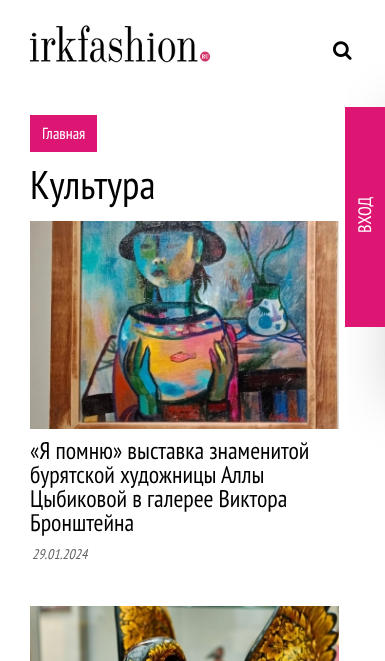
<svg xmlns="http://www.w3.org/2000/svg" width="385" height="661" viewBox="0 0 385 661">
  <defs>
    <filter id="blur1" x="-50%" y="-200%" width="200%" height="500%"><feGaussianBlur stdDeviation="25"/></filter>
  </defs>
  <rect width="100%" height="100%" fill="#ffffff"/>
  <image x="30" y="25" width="180" height="38" href="img1.png"/>
  <image x="333" y="41" width="19" height="19" href="img2.png"/>
  <rect x="30" y="115" width="67" height="37" fill="#dd1673"/>
  <text x="42" y="139" font-family="PT Sans Narrow" font-size="16" fill="#ffffff">Главная</text>
  <text x="30" y="199" font-family="PT Sans Narrow" font-size="40" fill="#000000">Культура</text>
  <image x="30" y="221" width="309" height="208" href="img3.png"/>
  <text x="30" y="459" font-family="PT Sans Narrow" font-size="24" fill="#000000">«Я помню» выставка знаменитой</text>
  <text x="30" y="483" font-family="PT Sans Narrow" font-size="24" fill="#000000">бурятской художницы Аллы</text>
  <text x="30" y="507" font-family="PT Sans Narrow" font-size="24" fill="#000000">Цыбиковой в галерее Виктора</text>
  <text x="30" y="531" font-family="PT Sans Narrow" font-size="24" fill="#000000">Бронштейна</text>
  <text x="32" y="559" font-family="PT Sans Narrow" font-size="14" font-style="italic" fill="#656565">29.01.2024</text>
  <image x="30" y="606" width="309" height="55" href="img4.png"/>
  <rect x="385" y="107" width="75" height="295" fill="#000000" fill-opacity="0.15" filter="url(#blur1)"/>
  <rect x="345" y="107" width="40" height="220" fill="#dd1673"/>
  <text x="371" y="233" transform="rotate(-90 371 233)" font-family="PT Sans Narrow" font-size="18" fill="#ffffff">ВХОД</text>
</svg>
